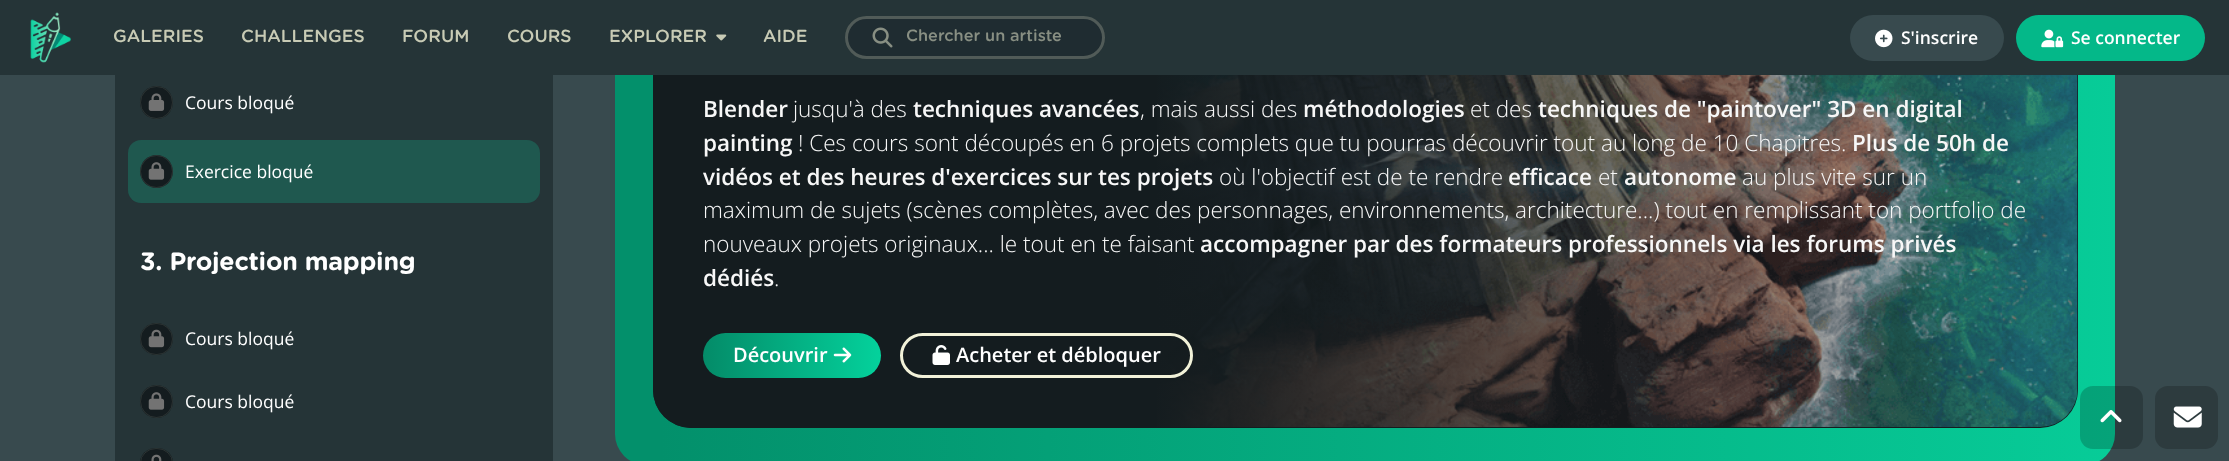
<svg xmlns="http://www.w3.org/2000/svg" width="2229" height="461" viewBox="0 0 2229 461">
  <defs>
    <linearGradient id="g1" gradientUnits="userSpaceOnUse" x1="615" y1="-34" x2="2115" y2="-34"><stop offset="0.03" stop-color="#03906b"/><stop offset="1" stop-color="#07cc98"/></linearGradient>
    <linearGradient id="g2" gradientUnits="userSpaceOnUse" x1="653" y1="58" x2="2078" y2="58"><stop offset="0.35" stop-color="#141c1f"/><stop offset="1" stop-color="#141c1f" stop-opacity="0"/></linearGradient>
    <linearGradient id="g3" gradientUnits="userSpaceOnUse" x1="703" y1="355" x2="881" y2="355"><stop offset="0" stop-color="#048b68"/><stop offset="1" stop-color="#04d29c"/></linearGradient>
  </defs>
  <rect width="100%" height="100%" fill="#384a4e"/>
  <rect x="615" y="-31" width="1500" height="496" rx="31" fill="url(#g1)"/>
  <rect x="653" y="-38" width="1425" height="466" rx="38" fill="#141c1f"/>
  <image x="1157" y="75" width="921" height="352" href="img10.png"/>
  <rect x="653" y="-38" width="1425" height="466" rx="38" fill="url(#g2)"/>
  <rect x="0" y="0" width="2229" height="75" fill="#253437"/>
  <image x="30" y="12" width="41" height="51" href="img1.png"/>
  <text x="113" y="42" font-family="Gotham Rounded" font-size="17.5" font-weight="500" fill="#c8cbb5">GALERIES</text>
  <text x="241" y="42" font-family="Gotham Rounded" font-size="17.5" font-weight="500" fill="#c8cbb5">CHALLENGES</text>
  <text x="402" y="42" font-family="Gotham Rounded" font-size="17.5" font-weight="500" fill="#c8cbb5">FORUM</text>
  <text x="507" y="42" font-family="Gotham Rounded" font-size="17.5" font-weight="500" fill="#c8cbb5">COURS</text>
  <text x="609" y="42" font-family="Gotham Rounded" font-size="17.5" font-weight="500" fill="#c8cbb5">EXPLORER</text>
  <image x="716" y="34" width="11" height="7" href="img2.png"/>
  <text x="763" y="42" font-family="Gotham Rounded" font-size="17.5" font-weight="500" fill="#c8cbb5">AIDE</text>
  <rect x="845" y="16" width="260" height="43" rx="21.5" fill="#1f2c31"/>
  <rect x="846.5" y="17.5" width="257" height="40" rx="20" fill="none" stroke="#c7cab4" stroke-opacity="0.3" stroke-width="3"/>
  <image x="872" y="27" width="21" height="21" href="img3.png"/>
  <text x="906" y="41" font-family="Gotham Rounded" font-size="16.25" font-weight="500" fill="#888f83">Chercher un artiste</text>
  <rect x="1850" y="15" width="154" height="46" rx="23" fill="#384a4e"/>
  <image x="1875" y="29" width="18" height="19" href="img4.png"/>
  <text x="1901" y="44" font-family="Open Sans" font-size="17.5" font-weight="600" fill="#ffffff">S'inscrire</text>
  <rect x="2016" y="15" width="189" height="46" rx="23" fill="#04b889"/>
  <image x="2041" y="29" width="23" height="19" href="img5.png"/>
  <text x="2071" y="44" font-family="Open Sans" font-size="17.5" font-weight="600" fill="#ffffff">Se connecter</text>
  <rect x="115" y="75" width="438" height="386" fill="#253437"/>
  <circle cx="156.5" cy="102.5" r="16.5" fill="#141c1f"/>
  <circle cx="156.5" cy="102.5" r="16" fill="none" stroke="#f2f2d9" stroke-opacity="0.1"/>
  <image x="148" y="93" width="17" height="18" href="img6.png"/>
  <text x="185" y="109" font-family="Open Sans" font-size="17.5" fill="#ffffff">Cours bloqué</text>
  <rect x="128" y="140" width="412" height="63" rx="13" fill="#1f584f"/>
  <circle cx="156.5" cy="171.5" r="16.5" fill="#141c1f"/>
  <circle cx="156.5" cy="171.5" r="16" fill="none" stroke="#f2f2d9" stroke-opacity="0.1"/>
  <image x="148" y="162" width="17" height="18" href="img7.png"/>
  <text x="185" y="178" font-family="Open Sans" font-size="17.5" fill="#ffffff">Exercice bloqué</text>
  <text x="140" y="270" font-family="Gotham Rounded" font-size="25" font-weight="bold" letter-spacing="-0.25" fill="#ffffff">3. Projection mapping</text>
  <rect x="140" y="323" width="33" height="32" rx="16" fill="#141c1f"/>
  <rect x="140.5" y="323.5" width="32" height="31" rx="15.5" fill="none" stroke="#f2f2d9" stroke-opacity="0.1"/>
  <image x="148" y="329" width="17" height="19" href="img8.png"/>
  <text x="185" y="345" font-family="Open Sans" font-size="17.5" fill="#ffffff">Cours bloqué</text>
  <circle cx="156.5" cy="401.5" r="16.5" fill="#141c1f"/>
  <circle cx="156.5" cy="401.5" r="16" fill="none" stroke="#f2f2d9" stroke-opacity="0.1"/>
  <image x="148" y="392" width="17" height="18" href="img7.png"/>
  <text x="185" y="408" font-family="Open Sans" font-size="17.5" fill="#ffffff">Cours bloqué</text>
  <rect x="140" y="448" width="33" height="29" rx="16" fill="#141c1f"/>
  <rect x="140.5" y="448.5" width="32" height="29" rx="15.5" fill="none" stroke="#f2f2d9" stroke-opacity="0.1"/>
  <image x="151" y="454" width="11" height="7" href="img9.png"/>
  <text x="703" y="117" font-family="Open Sans" font-size="22.5" font-weight="600" fill="#f7f7f7">Blender</text>
  <text x="793" y="117" font-family="Open Sans" font-size="22.5" font-weight="300" fill="#f7f7f7">jusqu'à des</text>
  <text x="913" y="117" font-family="Open Sans" font-size="22.5" font-weight="600" fill="#f7f7f7">techniques avancées</text>
  <text x="1140" y="117" font-family="Open Sans" font-size="22.5" font-weight="300" fill="#f7f7f7">, mais aussi des</text>
  <text x="1303" y="117" font-family="Open Sans" font-size="22.5" font-weight="600" fill="#f7f7f7">méthodologies</text>
  <text x="1470" y="117" font-family="Open Sans" font-size="22.5" font-weight="300" fill="#f7f7f7">et des</text>
  <text x="1538" y="117" font-family="Open Sans" font-size="22.5" font-weight="600" fill="#f7f7f7">techniques de "paintover" 3D en digital</text>
  <text x="703" y="151" font-family="Open Sans" font-size="22.5" font-weight="600" fill="#f7f7f7">painting</text>
  <text x="798" y="151" font-family="Open Sans" font-size="22.5" font-weight="300" fill="#f7f7f7">! Ces cours sont découpés en 6 projets complets que tu pourras découvrir tout au long de 10 Chapitres.</text>
  <text x="1852" y="151" font-family="Open Sans" font-size="22.5" font-weight="600" fill="#f7f7f7">Plus de 50h de</text>
  <text x="703" y="185" font-family="Open Sans" font-size="22.5" font-weight="600" fill="#f7f7f7">vidéos et des heures d'exercices sur tes projets</text>
  <text x="1219" y="185" font-family="Open Sans" font-size="22.5" font-weight="300" fill="#f7f7f7">où l'objectif est de te rendre</text>
  <text x="1508" y="185" font-family="Open Sans" font-size="22.5" font-weight="600" fill="#f7f7f7">efficace</text>
  <text x="1598" y="185" font-family="Open Sans" font-size="22.5" font-weight="300" fill="#f7f7f7">et</text>
  <text x="1624" y="185" font-family="Open Sans" font-size="22.5" font-weight="600" fill="#f7f7f7">autonome</text>
  <text x="1742" y="185" font-family="Open Sans" font-size="22.5" font-weight="300" fill="#f7f7f7">au plus vite sur un</text>
  <text x="703" y="218" font-family="Open Sans" font-size="22.5" font-weight="300" fill="#f7f7f7">maximum de sujets (scènes complètes, avec des personnages, environnements, architecture...) tout en remplissant ton portfolio de</text>
  <text x="703" y="252" font-family="Open Sans" font-size="22.5" font-weight="300" fill="#f7f7f7">nouveaux projets originaux... le tout en te faisant</text>
  <text x="1200" y="252" font-family="Open Sans" font-size="22.5" font-weight="600" fill="#f7f7f7">accompagner par des formateurs professionnels via les forums privés</text>
  <text x="703" y="286" font-family="Open Sans" font-size="22.5" font-weight="600" fill="#f7f7f7">dédiés</text>
  <text x="774" y="286" font-family="Open Sans" font-size="22.5" font-weight="300" fill="#f7f7f7">.</text>
  <rect x="703" y="333" width="178" height="45" rx="22.5" fill="url(#g3)"/>
  <text x="733" y="362" font-family="Open Sans" font-size="20" font-weight="600" fill="#ffffff">Découvrir</text>
  <image x="833" y="347" width="19" height="16" href="img11.png"/>
  <rect x="901.5" y="334.5" width="290" height="42" rx="21" fill="none" stroke="#f2f2d9" stroke-width="3"/>
  <image x="932" y="345" width="18" height="20" href="img12.png"/>
  <text x="956" y="362" font-family="Open Sans" font-size="20" font-weight="600" fill="#ffffff">Acheter et débloquer</text>
  <rect x="2080" y="386" width="63" height="63" rx="13" fill="#000000" fill-opacity="0.2"/>
  <image x="2100" y="410" width="22" height="13" href="img13.png"/>
  <rect x="2155" y="386" width="63" height="63" rx="13" fill="#2d3b3e"/>
  <image x="2173" y="406" width="29" height="22" href="img14.png"/>
</svg>
